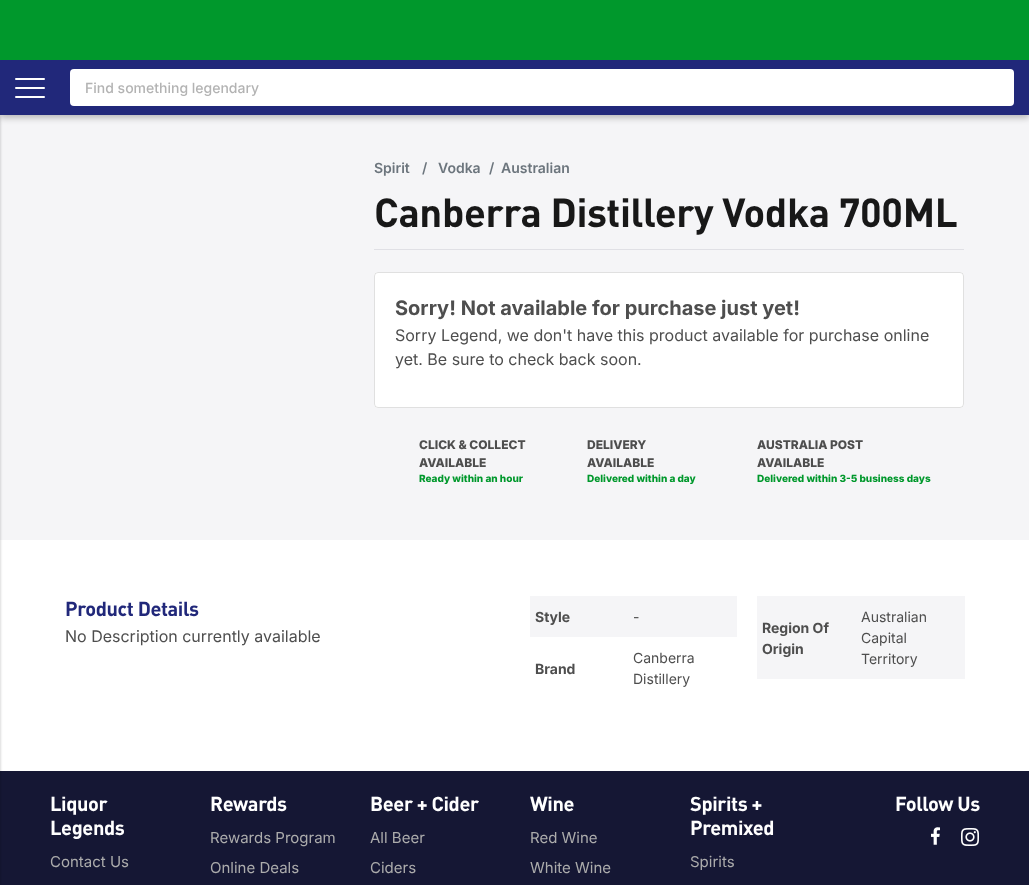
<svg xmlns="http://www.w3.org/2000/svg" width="1029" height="885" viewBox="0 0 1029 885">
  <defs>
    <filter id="blur1" x="-50%" y="-200%" width="200%" height="500%"><feGaussianBlur stdDeviation="3"/></filter>
    <filter id="blur2" x="-50%" y="-200%" width="200%" height="500%"><feGaussianBlur stdDeviation="1.5"/></filter>
  </defs>
  <rect width="100%" height="100%" fill="#ffffff"/>
  <rect x="0" y="115" width="1029" height="425" fill="#f5f5f7"/>
  <rect x="0" y="3" width="1029" height="115" fill="#000000" fill-opacity="0.25" filter="url(#blur1)"/>
  <rect x="0" y="0" width="1029" height="60" fill="#00982c"/>
  <rect x="0" y="60" width="1029" height="55" fill="#21287a"/>
  <rect x="15" y="78" width="30" height="2" rx="1" fill="#ffffff"/>
  <rect x="15" y="87" width="30" height="2" rx="1" fill="#ffffff"/>
  <rect x="15" y="96" width="30" height="2" rx="1" fill="#ffffff"/>
  <rect x="70" y="69" width="944" height="37" rx="4" fill="#ffffff"/>
  <text x="85" y="93" font-family="Inter" font-size="14" font-weight="500" fill="#b3b3b3">Find something legendary</text>
  <rect x="0" y="771" width="1029" height="114" fill="#151734"/>
  <rect x="-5" y="115" width="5" height="770" fill="#000000" fill-opacity="0.25" filter="url(#blur2)"/>
  <text x="374" y="173" font-family="Inter" font-size="14" font-weight="600" fill="#6c757d">Spirit</text>
  <text x="422" y="173" font-family="Inter" font-size="14" font-weight="600" fill="#6c757d">/</text>
  <text x="438" y="173" font-family="Inter" font-size="14" font-weight="600" fill="#6c757d">Vodka</text>
  <text x="489" y="173" font-family="Inter" font-size="14" font-weight="600" fill="#6c757d">/</text>
  <text x="501" y="173" font-family="Inter" font-size="14" font-weight="600" fill="#6c757d">Australian</text>
  <text x="374" y="227" font-family="DIN" font-size="40" font-weight="bold" letter-spacing="-0.4" fill="#181818">Canberra Distillery Vodka 700ML</text>
  <rect x="374" y="249" width="590" height="1" fill="#e0e0e5"/>
  <rect x="374" y="272" width="590" height="136" rx="4" fill="#ffffff"/>
  <rect x="374.5" y="272.5" width="589" height="135" rx="3.5" fill="none" stroke="#000000" stroke-opacity="0.12"/>
  <text x="395" y="315" font-family="Inter" font-size="20" font-weight="bold" fill="#4e4e4e">Sorry! Not available for purchase just yet!</text>
  <text x="395" y="341" font-family="Inter" font-size="16" fill="#4e4e4e">Sorry Legend, we don't have this product available for purchase online</text>
  <text x="395" y="365" font-family="Inter" font-size="16" fill="#4e4e4e">yet. Be sure to check back soon.</text>
  <text x="419" y="449" font-family="Inter" font-size="12" font-weight="800" fill="#4e4e4e">CLICK &amp; COLLECT</text>
  <text x="419" y="467" font-family="Inter" font-size="12" font-weight="800" fill="#4e4e4e">AVAILABLE</text>
  <text x="419" y="482" font-family="Inter" font-size="10" font-weight="800" fill="#00982c">Ready within an hour</text>
  <text x="587" y="449" font-family="Inter" font-size="12" font-weight="800" fill="#4e4e4e">DELIVERY</text>
  <text x="587" y="467" font-family="Inter" font-size="12" font-weight="800" fill="#4e4e4e">AVAILABLE</text>
  <text x="587" y="482" font-family="Inter" font-size="10" font-weight="800" fill="#00982c">Delivered within a day</text>
  <text x="757" y="449" font-family="Inter" font-size="12" font-weight="800" fill="#4e4e4e">AUSTRALIA POST</text>
  <text x="757" y="467" font-family="Inter" font-size="12" font-weight="800" fill="#4e4e4e">AVAILABLE</text>
  <text x="757" y="482" font-family="Inter" font-size="10" font-weight="800" fill="#00982c">Delivered within 3-5 business days</text>
  <text x="65" y="616" font-family="DIN" font-size="20" font-weight="bold" letter-spacing="-0.4" fill="#21287a">Product Details</text>
  <text x="65" y="642" font-family="Inter" font-size="16" fill="#4e4e4e">No Description currently available</text>
  <rect x="530" y="596" width="207" height="41" fill="#f5f5f7"/>
  <text x="535" y="622" font-family="Inter" font-size="14" font-weight="bold" fill="#4e4e4e">Style</text>
  <text x="633" y="622" font-family="Inter" font-size="14" fill="#4e4e4e">-</text>
  <text x="535" y="674" font-family="Inter" font-size="14" font-weight="bold" fill="#4e4e4e">Brand</text>
  <text x="633" y="663" font-family="Inter" font-size="14" fill="#4e4e4e">Canberra</text>
  <text x="633" y="684" font-family="Inter" font-size="14" fill="#4e4e4e">Distillery</text>
  <rect x="757" y="596" width="208" height="83" fill="#f5f5f7"/>
  <text x="762" y="633" font-family="Inter" font-size="14" font-weight="bold" fill="#4e4e4e">Region Of</text>
  <text x="762" y="654" font-family="Inter" font-size="14" font-weight="bold" fill="#4e4e4e">Origin</text>
  <text x="861" y="622" font-family="Inter" font-size="14" fill="#4e4e4e">Australian</text>
  <text x="861" y="643" font-family="Inter" font-size="14" fill="#4e4e4e">Capital</text>
  <text x="861" y="664" font-family="Inter" font-size="14" fill="#4e4e4e">Territory</text>
  <text x="50" y="811" font-family="DIN" font-size="20" font-weight="bold" letter-spacing="-0.4" fill="#ffffff">Liquor</text>
  <text x="50" y="835" font-family="DIN" font-size="20" font-weight="bold" letter-spacing="-0.4" fill="#ffffff">Legends</text>
  <text x="50" y="867" font-family="Inter" font-size="15" fill="#acacac">Contact Us</text>
  <text x="210" y="811" font-family="DIN" font-size="20" font-weight="bold" letter-spacing="-0.4" fill="#ffffff">Rewards</text>
  <text x="210" y="843" font-family="Inter" font-size="15" fill="#acacac">Rewards Program</text>
  <text x="210" y="873" font-family="Inter" font-size="15" fill="#acacac">Online Deals</text>
  <text x="370" y="811" font-family="DIN" font-size="20" font-weight="bold" letter-spacing="-0.4" fill="#ffffff">Beer + Cider</text>
  <text x="370" y="843" font-family="Inter" font-size="15" fill="#acacac">All Beer</text>
  <text x="370" y="873" font-family="Inter" font-size="15" fill="#acacac">Ciders</text>
  <text x="530" y="811" font-family="DIN" font-size="20" font-weight="bold" letter-spacing="-0.4" fill="#ffffff">Wine</text>
  <text x="530" y="843" font-family="Inter" font-size="15" fill="#acacac">Red Wine</text>
  <text x="530" y="873" font-family="Inter" font-size="15" fill="#acacac">White Wine</text>
  <text x="690" y="811" font-family="DIN" font-size="20" font-weight="bold" letter-spacing="-0.4" fill="#ffffff">Spirits +</text>
  <text x="690" y="835" font-family="DIN" font-size="20" font-weight="bold" letter-spacing="-0.4" fill="#ffffff">Premixed</text>
  <text x="690" y="867" font-family="Inter" font-size="15" fill="#acacac">Spirits</text>
  <text x="895" y="811" font-family="DIN" font-size="20" font-weight="bold" letter-spacing="-0.4" fill="#ffffff">Follow Us</text>
  <image x="931" y="827" width="9" height="18" href="img1.png"/>
  <image x="961" y="828" width="18" height="18" href="img2.png"/>
</svg>
